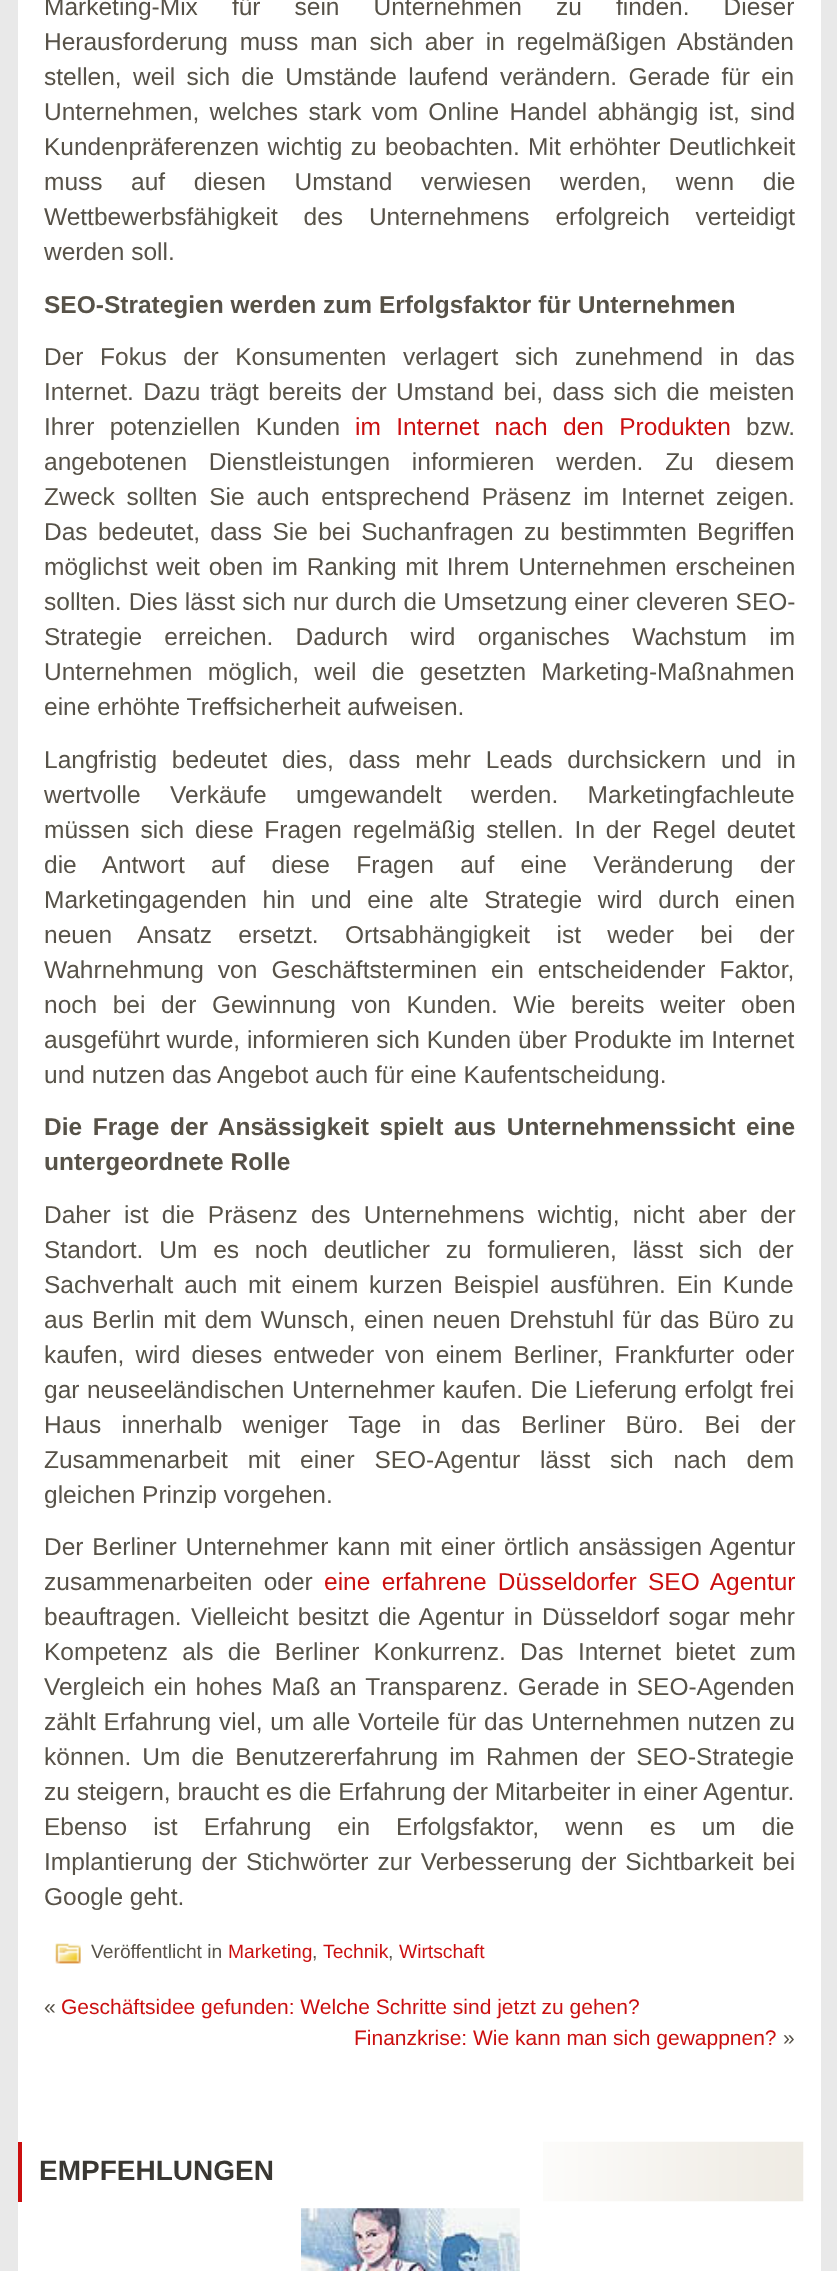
<svg xmlns="http://www.w3.org/2000/svg" width="837" height="2271" viewBox="0 0 837 2271">
  <rect width="100%" height="100%" fill="#e9e9e9"/>
  <rect x="18" y="0" width="803" height="2271" fill="#ffffff"/>
  <text x="44" y="15" word-spacing="27.25" font-family="Liberation Sans" font-size="24.5" fill="#575248">Marketing-Mix für sein Unternehmen zu finden. Dieser</text>
  <text x="44" y="50" word-spacing="5" font-family="Liberation Sans" font-size="24.5" fill="#575248">Herausforderung muss man sich aber in regelmäßigen Abständen</text>
  <text x="44" y="85" word-spacing="4.5" font-family="Liberation Sans" font-size="24.5" fill="#575248">stellen, weil sich die Umstände laufend verändern. Gerade für ein</text>
  <text x="44" y="120" word-spacing="3.5" font-family="Liberation Sans" font-size="24.5" fill="#575248">Unternehmen, welches stark vom Online Handel abhängig ist, sind</text>
  <text x="44" y="155" word-spacing="1.5" font-family="Liberation Sans" font-size="24.5" fill="#575248">Kundenpräferenzen wichtig zu beobachten. Mit erhöhter Deutlichkeit</text>
  <text x="44" y="190" word-spacing="21.75" font-family="Liberation Sans" font-size="24.5" fill="#575248">muss auf diesen Umstand verwiesen werden, wenn die</text>
  <text x="44" y="225" word-spacing="19" font-family="Liberation Sans" font-size="24.5" fill="#575248">Wettbewerbsfähigkeit des Unternehmens erfolgreich verteidigt</text>
  <text x="44" y="260" font-family="Liberation Sans" font-size="24.5" fill="#575248">werden soll.</text>
  <text x="44" y="313" font-family="Liberation Sans" font-size="24.5" font-weight="bold" fill="#575248">SEO-Strategien werden zum Erfolgsfaktor für Unternehmen</text>
  <text x="44" y="365" word-spacing="9.75" font-family="Liberation Sans" font-size="24.5" fill="#575248">Der Fokus der Konsumenten verlagert sich zunehmend in das</text>
  <text x="44" y="400" word-spacing="2.6" font-family="Liberation Sans" font-size="24.5" fill="#575248">Internet. Dazu trägt bereits der Umstand bei, dass sich die meisten</text>
  <text x="44" y="435" word-spacing="8.5" font-family="Liberation Sans" font-size="24.5" fill="#575248">Ihrer potenziellen Kunden</text>
  <text x="355" y="435" word-spacing="8.5" font-family="Liberation Sans" font-size="24.5" fill="#cb0f0f">im Internet nach den Produkten</text>
  <text x="746" y="435" font-family="Liberation Sans" font-size="24.5" fill="#575248">bzw.</text>
  <text x="44" y="470" word-spacing="15" font-family="Liberation Sans" font-size="24.5" fill="#575248">angebotenen Dienstleistungen informieren werden. Zu diesem</text>
  <text x="44" y="505" word-spacing="5" font-family="Liberation Sans" font-size="24.5" fill="#575248">Zweck sollten Sie auch entsprechend Präsenz im Internet zeigen.</text>
  <text x="44" y="540" word-spacing="3.5" font-family="Liberation Sans" font-size="24.5" fill="#575248">Das bedeutet, dass Sie bei Suchanfragen zu bestimmten Begriffen</text>
  <text x="44" y="575" word-spacing="2" font-family="Liberation Sans" font-size="24.5" fill="#575248">möglichst weit oben im Ranking mit Ihrem Unternehmen erscheinen</text>
  <text x="44" y="610" word-spacing="0.25" font-family="Liberation Sans" font-size="24.5" fill="#575248">sollten. Dies lässt sich nur durch die Umsetzung einer cleveren SEO-</text>
  <text x="44" y="645" word-spacing="15.5" font-family="Liberation Sans" font-size="24.5" fill="#575248">Strategie erreichen. Dadurch wird organisches Wachstum im</text>
  <text x="44" y="680" word-spacing="8.5" font-family="Liberation Sans" font-size="24.5" fill="#575248">Unternehmen möglich, weil die gesetzten Marketing-Maßnahmen</text>
  <text x="44" y="715" font-family="Liberation Sans" font-size="24.5" fill="#575248">eine erhöhte Treffsicherheit aufweisen.</text>
  <text x="44" y="768" word-spacing="8" font-family="Liberation Sans" font-size="24.5" fill="#575248">Langfristig bedeutet dies, dass mehr Leads durchsickern und in</text>
  <text x="44" y="803" word-spacing="22.5" font-family="Liberation Sans" font-size="24.5" fill="#575248">wertvolle Verkäufe umgewandelt werden. Marketingfachleute</text>
  <text x="44" y="838" word-spacing="4" font-family="Liberation Sans" font-size="24.5" fill="#575248">müssen sich diese Fragen regelmäßig stellen. In der Regel deutet</text>
  <text x="44" y="873" word-spacing="19.5" font-family="Liberation Sans" font-size="24.5" fill="#575248">die Antwort auf diese Fragen auf eine Veränderung der</text>
  <text x="44" y="908" word-spacing="8.75" font-family="Liberation Sans" font-size="24.5" fill="#575248">Marketingagenden hin und eine alte Strategie wird durch einen</text>
  <text x="44" y="943" word-spacing="19.5" font-family="Liberation Sans" font-size="24.5" fill="#575248">neuen Ansatz ersetzt. Ortsabhängigkeit ist weder bei der</text>
  <text x="44" y="978" word-spacing="7.25" font-family="Liberation Sans" font-size="24.5" fill="#575248">Wahrnehmung von Geschäftsterminen ein entscheidender Faktor,</text>
  <text x="44" y="1013" word-spacing="8.75" font-family="Liberation Sans" font-size="24.5" fill="#575248">noch bei der Gewinnung von Kunden. Wie bereits weiter oben</text>
  <text x="44" y="1048" font-family="Liberation Sans" font-size="24.5" fill="#575248">ausgeführt wurde, informieren sich Kunden über Produkte im Internet</text>
  <text x="44" y="1083" font-family="Liberation Sans" font-size="24.5" fill="#575248">und nutzen das Angebot auch für eine Kaufentscheidung.</text>
  <text x="44" y="1135" word-spacing="3.75" font-family="Liberation Sans" font-size="24.5" font-weight="bold" fill="#575248">Die Frage der Ansässigkeit spielt aus Unternehmenssicht eine</text>
  <text x="44" y="1170" font-family="Liberation Sans" font-size="24.5" font-weight="bold" fill="#575248">untergeordnete Rolle</text>
  <text x="44" y="1223" word-spacing="6.5" font-family="Liberation Sans" font-size="24.5" fill="#575248">Daher ist die Präsenz des Unternehmens wichtig, nicht aber der</text>
  <text x="44" y="1258" word-spacing="9" font-family="Liberation Sans" font-size="24.5" fill="#575248">Standort. Um es noch deutlicher zu formulieren, lässt sich der</text>
  <text x="44" y="1293" word-spacing="4" font-family="Liberation Sans" font-size="24.5" fill="#575248">Sachverhalt auch mit einem kurzen Beispiel ausführen. Ein Kunde</text>
  <text x="44" y="1328" word-spacing="1.75" font-family="Liberation Sans" font-size="24.5" fill="#575248">aus Berlin mit dem Wunsch, einen neuen Drehstuhl für das Büro zu</text>
  <text x="44" y="1363" word-spacing="4.25" font-family="Liberation Sans" font-size="24.5" fill="#575248">kaufen, wird dieses entweder von einem Berliner, Frankfurter oder</text>
  <text x="44" y="1398" word-spacing="0.75" font-family="Liberation Sans" font-size="24.5" fill="#575248">gar neuseeländischen Unternehmer kaufen. Die Lieferung erfolgt frei</text>
  <text x="44" y="1433" word-spacing="13.5" font-family="Liberation Sans" font-size="24.5" fill="#575248">Haus innerhalb weniger Tage in das Berliner Büro. Bei der</text>
  <text x="44" y="1468" word-spacing="13" font-family="Liberation Sans" font-size="24.5" fill="#575248">Zusammenarbeit mit einer SEO-Agentur lässt sich nach dem</text>
  <text x="44" y="1503" font-family="Liberation Sans" font-size="24.5" fill="#575248">gleichen Prinzip vorgehen.</text>
  <text x="44" y="1555" word-spacing="2" font-family="Liberation Sans" font-size="24.5" fill="#575248">Der Berliner Unternehmer kann mit einer örtlich ansässigen Agentur</text>
  <text x="44" y="1590" word-spacing="4.5" font-family="Liberation Sans" font-size="24.5" fill="#575248">zusammenarbeiten oder</text>
  <text x="324" y="1590" word-spacing="4.5" font-family="Liberation Sans" font-size="24.5" fill="#cb0f0f">eine erfahrene Düsseldorfer SEO Agentur</text>
  <text x="44" y="1625" word-spacing="2.5" font-family="Liberation Sans" font-size="24.5" fill="#575248">beauftragen. Vielleicht besitzt die Agentur in Düsseldorf sogar mehr</text>
  <text x="44" y="1660" word-spacing="7.5" font-family="Liberation Sans" font-size="24.5" fill="#575248">Kompetenz als die Berliner Konkurrenz. Das Internet bietet zum</text>
  <text x="44" y="1695" word-spacing="2.25" font-family="Liberation Sans" font-size="24.5" fill="#575248">Vergleich ein hohes Maß an Transparenz. Gerade in SEO-Agenden</text>
  <text x="44" y="1730" word-spacing="1" font-family="Liberation Sans" font-size="24.5" fill="#575248">zählt Erfahrung viel, um alle Vorteile für das Unternehmen nutzen zu</text>
  <text x="44" y="1765" word-spacing="4.25" font-family="Liberation Sans" font-size="24.5" fill="#575248">können. Um die Benutzererfahrung im Rahmen der SEO-Strategie</text>
  <text x="44" y="1800" font-family="Liberation Sans" font-size="24.5" fill="#575248">zu steigern, braucht es die Erfahrung der Mitarbeiter in einer Agentur.</text>
  <text x="44" y="1835" word-spacing="19.25" font-family="Liberation Sans" font-size="24.5" fill="#575248">Ebenso ist Erfahrung ein Erfolgsfaktor, wenn es um die</text>
  <text x="44" y="1870" word-spacing="2.25" font-family="Liberation Sans" font-size="24.5" fill="#575248">Implantierung der Stichwörter zur Verbesserung der Sichtbarkeit bei</text>
  <text x="44" y="1905" font-family="Liberation Sans" font-size="24.5" fill="#575248">Google geht.</text>
  <image x="55" y="1943" width="26" height="21" href="img1.png"/>
  <text x="91" y="1958" font-family="Liberation Sans" font-size="19.25" fill="#575248">Veröffentlicht in</text>
  <text x="228" y="1958" font-family="Liberation Sans" font-size="19.25" fill="#cb0f0f">Marketing</text>
  <text x="312" y="1958" font-family="Liberation Sans" font-size="19.25" fill="#575248">,</text>
  <text x="323" y="1958" font-family="Liberation Sans" font-size="19.25" fill="#cb0f0f">Technik</text>
  <text x="388" y="1958" font-family="Liberation Sans" font-size="19.25" fill="#575248">,</text>
  <text x="399" y="1958" font-family="Liberation Sans" font-size="19.25" fill="#cb0f0f">Wirtschaft</text>
  <text x="44" y="2014" font-family="Liberation Sans" font-size="21" fill="#575248">«</text>
  <text x="61" y="2014" font-family="Liberation Sans" font-size="21" fill="#cb0f0f">Geschäftsidee gefunden: Welche Schritte sind jetzt zu gehen?</text>
  <text x="354" y="2045" font-family="Liberation Sans" font-size="21" fill="#cb0f0f">Finanzkrise: Wie kann man sich gewappnen?</text>
  <text x="783" y="2045" font-family="Liberation Sans" font-size="21" fill="#575248">»</text>
  <image x="543" y="2141" width="261" height="61" href="img2.png"/>
  <rect x="18" y="2142" width="4" height="60" fill="#cb0f0f"/>
  <text x="39" y="2180" font-family="Liberation Sans" font-size="28" font-weight="bold" fill="#3a3833">EMPFEHLUNGEN</text>
  <image x="301" y="2208" width="219" height="63" href="img3.png"/>
</svg>
